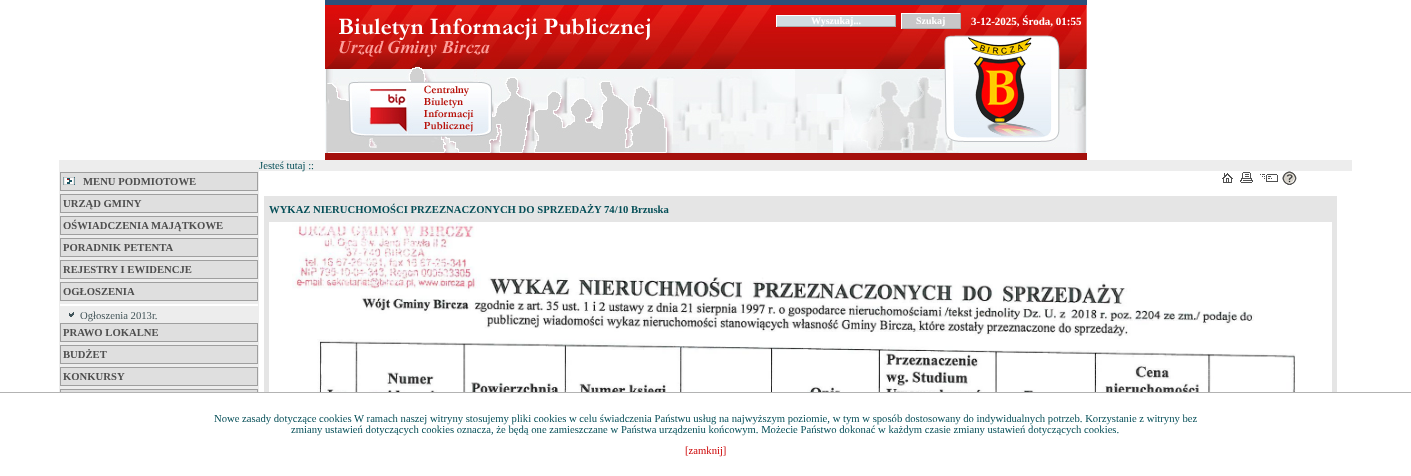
<svg xmlns="http://www.w3.org/2000/svg" width="1411" height="476" viewBox="0 0 1411 476">
  <rect width="100%" height="100%" fill="#ffffff"/>
  <rect x="325" y="0" width="762" height="5" fill="#2b507a"/>
  <image x="325" y="5" width="166" height="148" href="img1.png"/>
  <image x="491" y="5" width="201" height="148" href="img2.png"/>
  <image x="692" y="5" width="395" height="31" href="img3.png"/>
  <rect x="777" y="16" width="118" height="10" fill="#d1dbe0"/>
  <rect x="776" y="15" width="120" height="1" fill="#ffffff"/>
  <rect x="895" y="15" width="1" height="12" fill="#aaaaaa"/>
  <rect x="776" y="26" width="120" height="1" fill="#aaaaaa"/>
  <rect x="776" y="15" width="1" height="12" fill="#ffffff"/>
  <text x="811" y="24" font-family="Liberation Serif" font-size="10" font-weight="bold" fill="#ffffff">Wyszukaj...</text>
  <rect x="902" y="14" width="58" height="14" fill="#c8c7c8"/>
  <rect x="901" y="13" width="60" height="1" fill="#ffffff"/>
  <rect x="960" y="13" width="1" height="16" fill="#aaaaaa"/>
  <rect x="901" y="28" width="60" height="1" fill="#aaaaaa"/>
  <rect x="901" y="13" width="1" height="16" fill="#ffffff"/>
  <text x="916" y="24" font-family="Liberation Serif" font-size="10" font-weight="bold" fill="#ffffff">Szukaj</text>
  <text x="971" y="25" font-family="Liberation Serif" font-size="11" font-weight="bold" fill="#ffffff">3-12-2025, Środa, 01:55</text>
  <image x="692" y="36" width="253" height="117" href="img4.png"/>
  <image x="945" y="36" width="115" height="117" href="img5.png"/>
  <image x="1060" y="36" width="27" height="117" href="img6.png"/>
  <rect x="325" y="153" width="762" height="7" fill="#a4100c"/>
  <rect x="59" y="160" width="200" height="232" fill="#ededed"/>
  <rect x="60.5" y="172.5" width="197" height="18" fill="#dfdfdf" stroke="#9f9f9f"/>
  <image x="63" y="177" width="12" height="8" href="img7.png"/>
  <text x="83" y="185" font-family="Liberation Serif" font-size="10.67" font-weight="bold" fill="#4f4f4f">MENU PODMIOTOWE</text>
  <rect x="60.5" y="194.5" width="197" height="18" fill="#dfdfdf" stroke="#9f9f9f"/>
  <text x="63" y="207" font-family="Liberation Serif" font-size="10.67" font-weight="bold" fill="#4f4f4f">URZĄD GMINY</text>
  <rect x="60.5" y="216.5" width="197" height="18" fill="#dfdfdf" stroke="#9f9f9f"/>
  <text x="63" y="229" font-family="Liberation Serif" font-size="10.67" font-weight="bold" fill="#4f4f4f">OŚWIADCZENIA MAJĄTKOWE</text>
  <rect x="60.5" y="238.5" width="197" height="18" fill="#dfdfdf" stroke="#9f9f9f"/>
  <text x="63" y="251" font-family="Liberation Serif" font-size="10.67" font-weight="bold" fill="#4f4f4f">PORADNIK PETENTA</text>
  <rect x="60.5" y="260.5" width="197" height="18" fill="#dfdfdf" stroke="#9f9f9f"/>
  <text x="63" y="273" font-family="Liberation Serif" font-size="10.67" font-weight="bold" fill="#4f4f4f">REJESTRY I EWIDENCJE</text>
  <rect x="60.5" y="282.5" width="197" height="18" fill="#dfdfdf" stroke="#9f9f9f"/>
  <text x="63" y="295" font-family="Liberation Serif" font-size="10.67" font-weight="bold" fill="#4f4f4f">OGŁOSZENIA</text>
  <image x="69" y="312" width="5" height="5" href="img8.png"/>
  <rect x="60" y="304" width="198" height="2" fill="#ffffff"/>
  <text x="80" y="319" font-family="Liberation Serif" font-size="10.67" fill="#435559">Ogłoszenia 2013r.</text>
  <rect x="60.5" y="323.5" width="197" height="18" fill="#dfdfdf" stroke="#9f9f9f"/>
  <text x="63" y="336" font-family="Liberation Serif" font-size="10.67" font-weight="bold" fill="#4f4f4f">PRAWO LOKALNE</text>
  <rect x="60.5" y="345.5" width="197" height="18" fill="#dfdfdf" stroke="#9f9f9f"/>
  <text x="63" y="358" font-family="Liberation Serif" font-size="10.67" font-weight="bold" fill="#4f4f4f">BUDŻET</text>
  <rect x="60.5" y="367.5" width="197" height="18" fill="#dfdfdf" stroke="#9f9f9f"/>
  <text x="63" y="380" font-family="Liberation Serif" font-size="10.67" font-weight="bold" fill="#4f4f4f">KONKURSY</text>
  <rect x="61" y="390" width="196" height="2" fill="#dfdfdf"/>
  <rect x="60.5" y="389.5" width="197" height="18" fill="none" stroke="#9f9f9f"/>
  <rect x="259" y="160" width="1093" height="11" fill="#ededed"/>
  <text x="259" y="169" font-family="Liberation Serif" font-size="10.67" fill="#064f58">Jesteś tutaj ::</text>
  <image x="1222" y="173" width="11" height="10" href="img9.png"/>
  <image x="1240" y="172" width="13" height="11" href="img10.png"/>
  <image x="1260" y="174" width="18" height="8" href="img11.png"/>
  <image x="1282" y="171" width="15" height="14" href="img12.png"/>
  <rect x="264" y="196" width="1073" height="196" fill="#e5e5e5"/>
  <text x="269" y="213" font-family="Liberation Serif" font-size="10.67" font-weight="bold" fill="#064f58">WYKAZ NIERUCHOMOŚCI PRZEZNACZONYCH DO SPRZEDAŻY 74/10 Brzuska</text>
  <rect x="269" y="222" width="1063" height="170" fill="#ffffff"/>
  <image x="292" y="223" width="1004" height="169" href="img13.png"/>
  <rect x="60" y="393" width="198" height="15" fill="#ffffff"/>
  <rect x="0" y="392" width="1411" height="1" fill="#b3b3b3"/>
  <text x="214" y="422" font-family="Liberation Serif" font-size="10.67" fill="#064f58">Nowe zasady dotyczące cookies W ramach naszej witryny stosujemy pliki cookies w celu świadczenia Państwu usług na najwyższym poziomie, w tym w sposób dostosowany do indywidualnych potrzeb. Korzystanie z witryny bez</text>
  <text x="291" y="433" font-family="Liberation Serif" font-size="10.67" fill="#064f58">zmiany ustawień dotyczących cookies oznacza, że będą one zamieszczane w Państwa urządzeniu końcowym. Możecie Państwo dokonać w każdym czasie zmiany ustawień dotyczących cookies.</text>
  <text x="685" y="454" font-family="Liberation Serif" font-size="10.67" fill="#cc0000">[zamknij]</text>
</svg>
